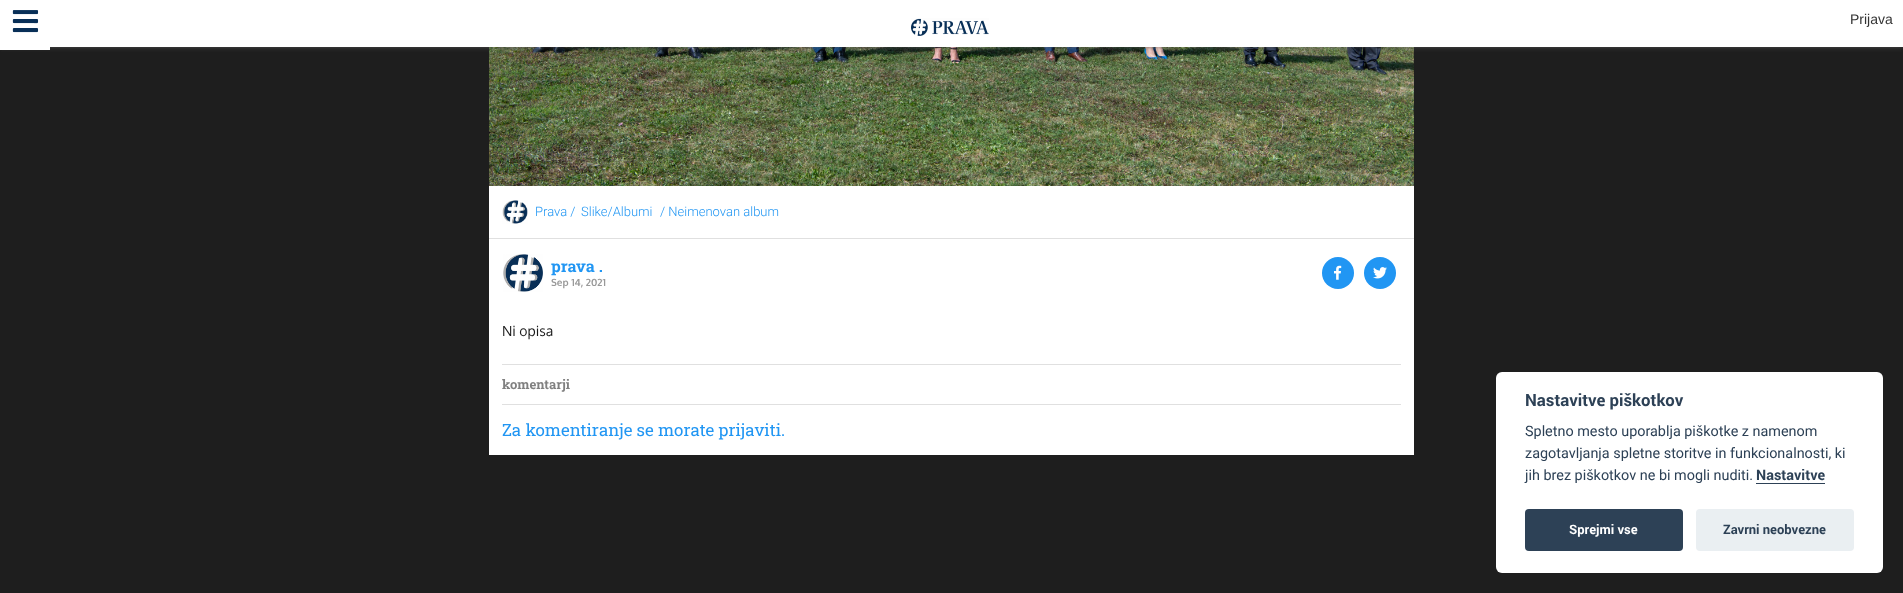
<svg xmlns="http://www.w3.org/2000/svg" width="1903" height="593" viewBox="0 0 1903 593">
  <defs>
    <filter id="blur1" x="-50%" y="-200%" width="200%" height="500%"><feGaussianBlur stdDeviation="2.5"/></filter>
  </defs>
  <rect width="100%" height="100%" fill="#1e1e1e"/>
  <image x="489" y="47" width="925" height="139" href="img3.png"/>
  <rect x="0" y="0" width="1903" height="47" fill="#646464" fill-opacity="0.7" filter="url(#blur1)"/>
  <rect x="50" y="0" width="1853" height="47" fill="#ffffff"/>
  <rect x="0" y="0" width="50" height="50" fill="#ffffff"/>
  <image x="12" y="10" width="27" height="23" href="img1.png"/>
  <image x="911" y="18" width="78" height="18" href="img2.png"/>
  <text x="1850" y="24" font-family="Liberation Sans" font-size="14" fill="#333333">Prijava</text>
  <rect x="489" y="186" width="925" height="52" fill="#ffffff"/>
  <rect x="489" y="238" width="925" height="1" fill="#e0e0e0"/>
  <image x="502" y="200" width="26" height="24" href="img4.png"/>
  <text x="535" y="216" font-family="Roboto" font-size="13" font-weight="300" fill="#2196f3">Prava /</text>
  <text x="581" y="216" font-family="Roboto" font-size="13" font-weight="300" fill="#2196f3">Slike/Albumi</text>
  <text x="660" y="216" font-family="Roboto" font-size="13" font-weight="300" fill="#2196f3">/ Neimenovan album</text>
  <rect x="489" y="239" width="925" height="216" fill="#ffffff"/>
  <image x="503" y="254" width="40" height="38" href="img5.png"/>
  <text x="551" y="272" font-family="Roboto Slab" font-size="16" font-weight="bold" fill="#2196f3">prava .</text>
  <text x="551" y="286" font-family="Oxygen" font-size="10" font-weight="bold" fill="#999999">Sep 14, 2021</text>
  <circle cx="1338" cy="273" r="16" fill="#2196f3"/>
  <image x="1334" y="265" width="8" height="15" href="img6.png"/>
  <circle cx="1380" cy="273" r="16" fill="#2196f3"/>
  <image x="1373" y="267" width="14" height="12" href="img7.png"/>
  <rect x="502" y="364" width="899" height="1" fill="#e0e0e0"/>
  <text x="502" y="336" font-family="Oxygen" font-size="14" fill="#1a1a1a">Ni opisa</text>
  <text x="502" y="389" font-family="Roboto Slab" font-size="13" font-weight="bold" fill="#808080">komentarji</text>
  <rect x="502" y="404" width="899" height="1" fill="#e0e0e0"/>
  <text x="502" y="436" font-family="Roboto Slab" font-size="16.9" fill="#2196f3">Za komentiranje se morate prijaviti.</text>
  <rect x="1496" y="372" width="387" height="201" rx="6" fill="#ffffff"/>
  <text x="1525" y="406" font-family="Roboto" font-size="16.75" font-weight="bold" fill="#2d4156">Nastavitve piškotkov</text>
  <text x="1525" y="436" font-family="Roboto" font-size="14.4" fill="#2d4156">Spletno mesto uporablja piškotke z namenom</text>
  <text x="1525" y="458" font-family="Roboto" font-size="14.4" fill="#2d4156">zagotavljanja spletne storitve in funkcionalnosti, ki</text>
  <text x="1525" y="480" font-family="Roboto" font-size="14.4" fill="#2d4156">jih brez piškotkov ne bi mogli nuditi.</text>
  <text x="1756" y="480" font-family="Roboto" font-size="14.4" font-weight="bold" fill="#2d4156">Nastavitve</text>
  <rect x="1756" y="483" width="69" height="1" fill="#2d4156"/>
  <rect x="1525" y="509" width="158" height="42" rx="4" fill="#2d4156"/>
  <text x="1569" y="534" font-family="Roboto" font-size="13" font-weight="bold" fill="#ffffff">Sprejmi vse</text>
  <rect x="1696" y="509" width="158" height="42" rx="4" fill="#eaeff2"/>
  <text x="1723" y="534" font-family="Roboto" font-size="13" font-weight="bold" fill="#2d4156">Zavrni neobvezne</text>
</svg>
